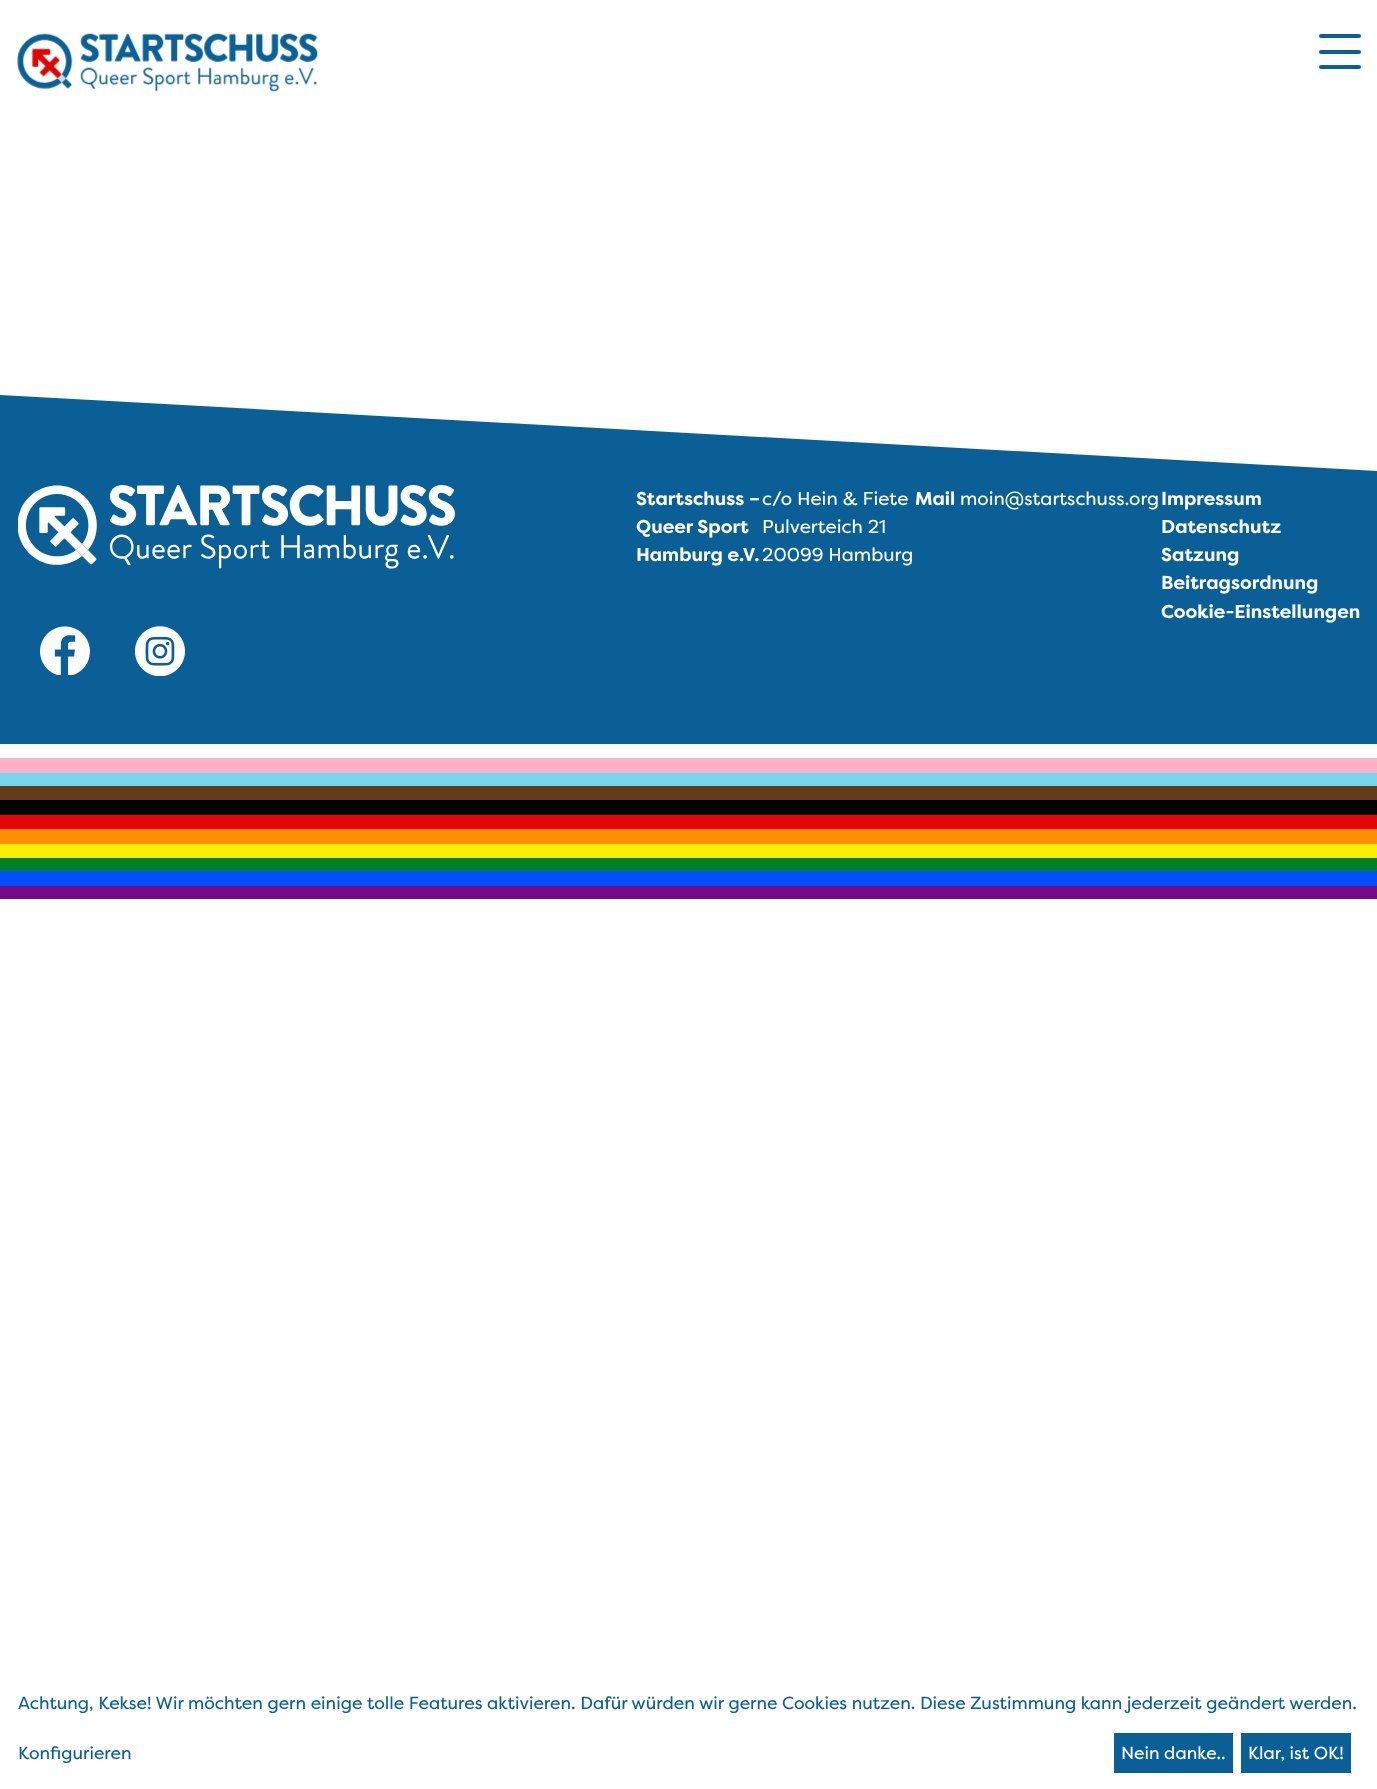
<svg xmlns="http://www.w3.org/2000/svg" width="1377" height="1789" viewBox="0 0 1377 1789">
  <rect width="100%" height="100%" fill="#ffffff"/>
  <image x="17" y="33" width="301" height="59" href="img1.png"/>
  <rect x="1319" y="34" width="42" height="4" rx="2" fill="#0a6096"/>
  <rect x="1319" y="50" width="42" height="4" rx="2" fill="#0a6096"/>
  <rect x="1319" y="65" width="42" height="4" rx="2" fill="#0a6096"/>
  <path d="M0 395V899H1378V471Z" fill="#0a6096"/>
  <image x="18" y="485" width="437" height="84" href="img2.png"/>
  <text x="636" y="505" font-family="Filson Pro" font-size="18.75" font-weight="bold" fill="#ffffff">Startschuss –</text>
  <text x="636" y="533" font-family="Filson Pro" font-size="18.75" font-weight="bold" fill="#ffffff">Queer Sport</text>
  <text x="636" y="561" font-family="Filson Pro" font-size="18.75" font-weight="bold" fill="#ffffff">Hamburg e.V.</text>
  <text x="762" y="505" font-family="Filson Pro" font-size="18.75" fill="#ffffff">c/o Hein &amp; Fiete</text>
  <text x="762" y="533" font-family="Filson Pro" font-size="18.75" fill="#ffffff">Pulverteich 21</text>
  <text x="762" y="561" font-family="Filson Pro" font-size="18.75" fill="#ffffff">20099 Hamburg</text>
  <text x="915" y="505" font-family="Filson Pro" font-size="18.75" font-weight="bold" fill="#ffffff">Mail</text>
  <text x="960" y="505" font-family="Filson Pro" font-size="18.75" fill="#ffffff">moin@startschuss.org</text>
  <text x="1161" y="505" font-family="Filson Pro" font-size="18.75" font-weight="bold" fill="#ffffff">Impressum</text>
  <text x="1161" y="533" font-family="Filson Pro" font-size="18.75" font-weight="bold" fill="#ffffff">Datenschutz</text>
  <text x="1161" y="561" font-family="Filson Pro" font-size="18.75" font-weight="bold" fill="#ffffff">Satzung</text>
  <text x="1161" y="589" font-family="Filson Pro" font-size="18.75" font-weight="bold" fill="#ffffff">Beitragsordnung</text>
  <text x="1161" y="618" font-family="Filson Pro" font-size="18.75" font-weight="bold" fill="#ffffff">Cookie-Einstellungen</text>
  <image x="40" y="626" width="50" height="49" href="img3.png"/>
  <image x="135" y="626" width="50" height="50" href="img4.png"/>
  <rect x="0" y="744" width="1377" height="14" fill="#ffffff"/>
  <rect x="0" y="758" width="1377" height="15" fill="#ffafc8"/>
  <rect x="0" y="773" width="1377" height="13" fill="#75d7ee"/>
  <rect x="0" y="786" width="1377" height="14" fill="#633b17"/>
  <rect x="0" y="800" width="1377" height="15" fill="#030303"/>
  <rect x="0" y="815" width="1377" height="14" fill="#e40606"/>
  <rect x="0" y="829" width="1377" height="15" fill="#ff8d03"/>
  <rect x="0" y="844" width="1377" height="14" fill="#ffed03"/>
  <rect x="0" y="858" width="1377" height="13" fill="#038128"/>
  <rect x="0" y="871" width="1377" height="15" fill="#034fff"/>
  <rect x="0" y="886" width="1377" height="13" fill="#760a88"/>
  <text x="18" y="1709" font-family="Filson Pro" font-size="17.5" fill="#0a6096">Achtung, Kekse! Wir möchten gern einige tolle Features aktivieren. Dafür würden wir gerne Cookies nutzen. Diese Zustimmung kann jederzeit geändert werden.</text>
  <text x="18" y="1759" font-family="Filson Pro" font-size="17.5" fill="#0a6096">Konfigurieren</text>
  <rect x="1114" y="1733" width="119" height="40" fill="#0a6096"/>
  <text x="1121" y="1759" font-family="Filson Pro" font-size="17.5" fill="#ffffff">Nein danke..</text>
  <rect x="1241" y="1733" width="110" height="40" fill="#0a6096"/>
  <text x="1248" y="1759" font-family="Filson Pro" font-size="17.5" fill="#ffffff">Klar, ist OK!</text>
</svg>
